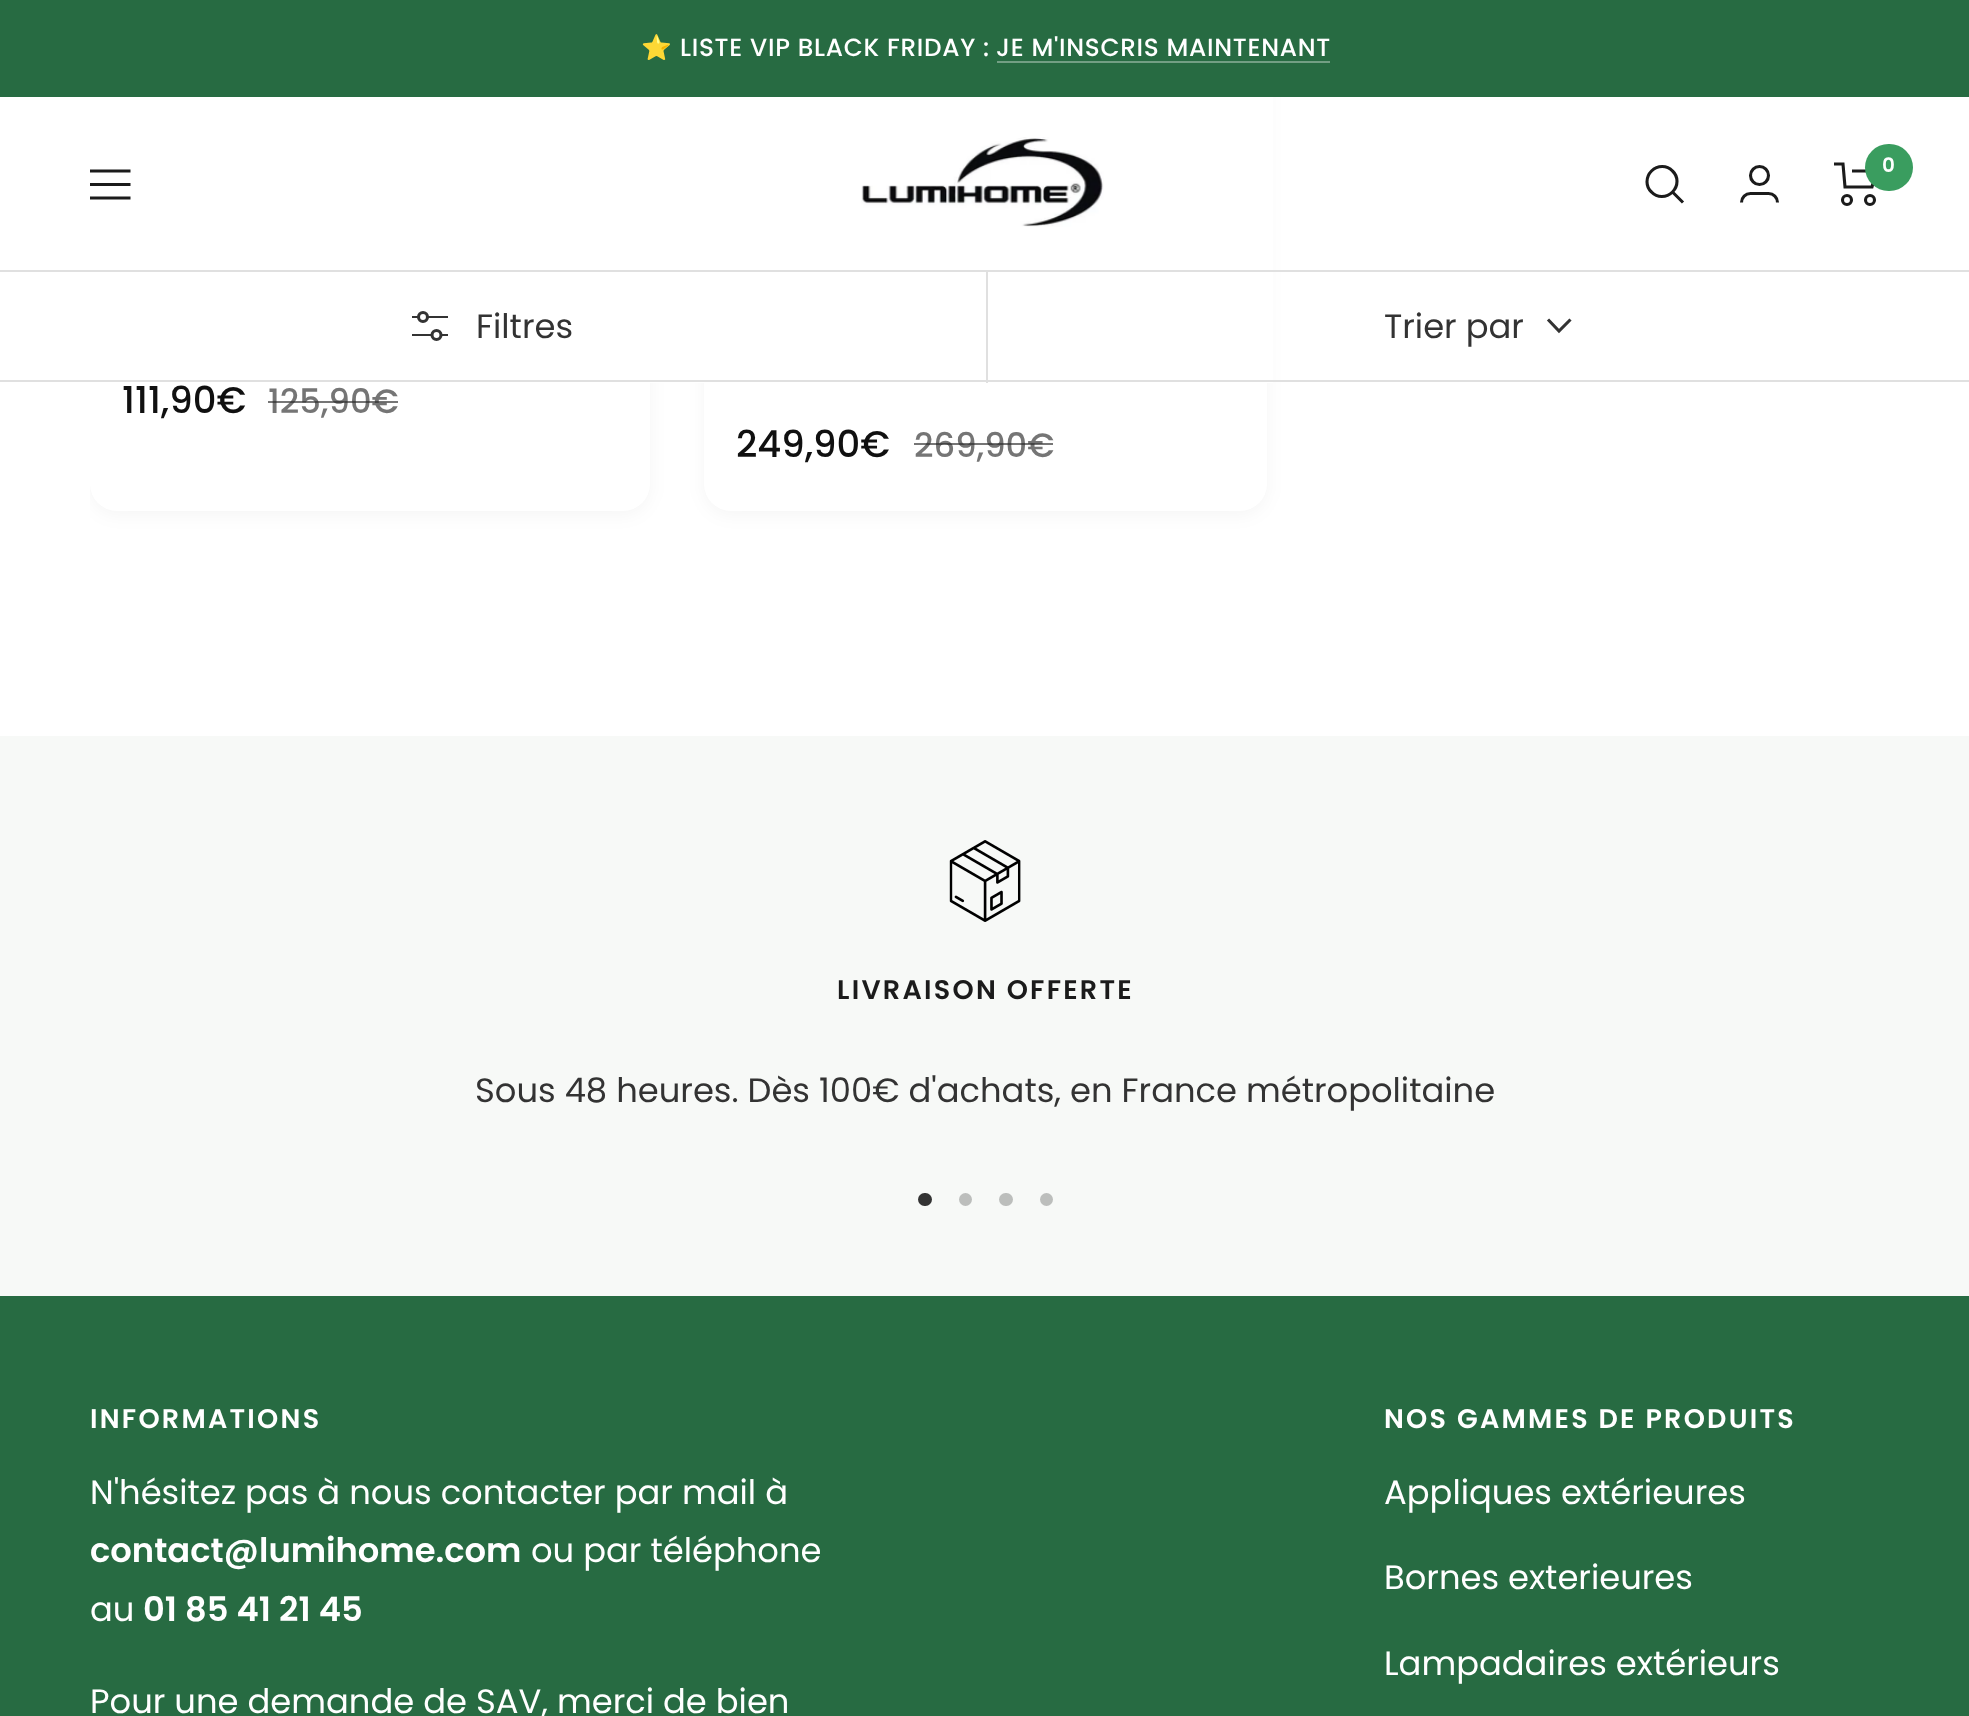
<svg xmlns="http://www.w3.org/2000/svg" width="1969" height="1716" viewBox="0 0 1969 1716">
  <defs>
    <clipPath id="clip1"><rect x="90" y="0" width="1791" height="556"/></clipPath>
    <filter id="blur1" x="-50%" y="-200%" width="200%" height="500%"><feGaussianBlur stdDeviation="9"/></filter>
  </defs>
  <rect width="100%" height="100%" fill="#ffffff"/>
  <g clip-path="url(#clip1)">
    <rect x="90" y="-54" width="560" height="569" rx="27" fill="#000000" fill-opacity="0.04" filter="url(#blur1)"/>
  </g>
  <rect x="90" y="-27" width="560" height="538" rx="27" fill="#ffffff"/>
  <rect x="704" y="-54" width="563" height="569" rx="27" fill="#000000" fill-opacity="0.04" filter="url(#blur1)"/>
  <rect x="704" y="-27" width="563" height="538" rx="27" fill="#ffffff"/>
  <rect x="0" y="0" width="1969" height="97" fill="#276b42"/>
  <text x="641" y="56" font-family="Noto Color Emoji" font-size="24.75" letter-spacing="0.7" fill="#ffffff">⭐️</text>
  <text x="680" y="56" font-family="Poppins" font-size="24.75" font-weight="500" letter-spacing="0.7" fill="#ffffff">LISTE VIP BLACK FRIDAY :</text>
  <text x="996" y="56" font-family="Poppins" font-size="24.75" font-weight="500" letter-spacing="0.7" fill="#ffffff">JE M'INSCRIS MAINTENANT</text>
  <rect x="997" y="61" width="333" height="2" fill="#739f84"/>
  <rect x="650" y="97" width="623" height="173" fill="#ffffff"/>
  <image x="861" y="137" width="243" height="90" href="img1.png"/>
  <path d="M1672.5 192C1678.5 186 1678.5 176.5 1672.5 171C1667 165 1657.5 165 1651.5 171C1645.5 177 1645.5 186.5 1651.5 192C1657 198 1666.5 198 1672.5 192ZM1672.5 192L1683 202.5" fill="none" stroke="#1b1b1b" stroke-width="3.1"/>
  <circle cx="1759.5" cy="175.5" r="9" fill="none" stroke="#1b1b1b" stroke-width="3.1"/>
  <path d="M1741.5 202.5C1741.5 197.5 1745.5 193.5 1750.5 193.5H1768.5C1773.5 193.5 1777.5 197.5 1777.5 202.5" fill="none" stroke="#1b1b1b" stroke-width="3.1"/>
  <path d="M1834 164H1843L1845 187H1872L1876.5 171H1852" fill="none" stroke="#1b1b1b" stroke-width="3.1"/>
  <circle cx="1847" cy="200" r="4.5" fill="none" stroke="#1b1b1b" stroke-width="3.1"/>
  <circle cx="1870" cy="200" r="4.5" fill="none" stroke="#1b1b1b" stroke-width="3.1"/>
  <rect x="1865" y="144" width="48" height="47" rx="23.5" fill="#3a9d5f"/>
  <text x="1882" y="172" font-family="Poppins" font-size="20" font-weight="600" fill="#ffffff">0</text>
  <path d="M90 171H130.5M90 198H130.5ZM90 184.5H130.5Z" fill="none" stroke="#1b1b1b" stroke-width="3.1"/>
  <rect x="650" y="272" width="54" height="111" fill="#ffffff"/>
  <rect x="0" y="270" width="1969" height="2" fill="#e0e0e0"/>
  <rect x="0" y="380" width="986" height="2" fill="#e0e0e0"/>
  <path d="M412 317H448M412 335H448" fill="none" stroke="#333333" stroke-width="2.2"/>
  <circle cx="423" cy="317" r="4.5" fill="#ffffff" stroke="#333333" stroke-width="3.1"/>
  <circle cx="436.5" cy="335" r="4.5" fill="#ffffff" stroke="#333333" stroke-width="3.1"/>
  <text x="476" y="338" font-family="Poppins" font-size="33.75" fill="#333333">Filtres</text>
  <rect x="1267" y="272" width="6" height="111" fill="#ffffff"/>
  <rect x="986" y="380" width="983" height="2" fill="#e0e0e0"/>
  <rect x="986" y="270" width="2" height="113" fill="#e0e0e0"/>
  <text x="1384" y="338" font-family="Poppins" font-size="33.75" fill="#333333">Trier par</text>
  <path d="M1548 319.5L1559 331L1570.5 319.5" fill="none" stroke="#333333" stroke-width="3.1"/>
  <text x="122" y="413" font-family="Poppins" font-size="37" font-weight="500" fill="#101010">111,90€</text>
  <text x="268" y="413" font-family="Poppins" font-size="33.75" font-weight="500" fill="#757575">125,90€</text>
  <rect x="268" y="401" width="130" height="2" fill="#282828" fill-opacity="0.64"/>
  <text x="736" y="457" font-family="Poppins" font-size="37" font-weight="500" fill="#101010">249,90€</text>
  <text x="914" y="457" font-family="Poppins" font-size="33.75" font-weight="500" fill="#757575">269,90€</text>
  <rect x="914" y="443" width="139" height="2" fill="#282828" fill-opacity="0.64"/>
  <rect x="0" y="736" width="1969" height="560" fill="#f7f9f7"/>
  <image x="949" y="840" width="72" height="82" href="img2.png"/>
  <text x="837" y="999" font-family="Poppins" font-size="27" font-weight="600" letter-spacing="2.25" fill="#1b1b1b">LIVRAISON OFFERTE</text>
  <text x="475" y="1102" font-family="Poppins" font-size="33.75" fill="#333333">Sous 48 heures. Dès 100€ d'achats, en France métropolitaine</text>
  <rect x="918" y="1193" width="14" height="13" rx="6.5" fill="#333333"/>
  <circle cx="965.5" cy="1199.5" r="6.5" fill="#bcbebc"/>
  <rect x="999" y="1193" width="14" height="13" rx="6.5" fill="#bcbebc"/>
  <circle cx="1046.5" cy="1199.5" r="6.5" fill="#bcbebc"/>
  <rect x="0" y="1296" width="1969" height="420" fill="#276b42"/>
  <text x="90" y="1428" font-family="Poppins" font-size="27" font-weight="600" letter-spacing="2.25" fill="#ffffff">INFORMATIONS</text>
  <text x="90" y="1504" font-family="Poppins" font-size="33.75" fill="#ffffff">N'hésitez pas à nous contacter par mail à</text>
  <text x="90" y="1562" font-family="Poppins" font-size="33.75" font-weight="600" fill="#ffffff">contact@lumihome.com</text>
  <text x="531" y="1562" font-family="Poppins" font-size="33.75" fill="#ffffff">ou par téléphone</text>
  <text x="90" y="1621" font-family="Poppins" font-size="33.75" fill="#ffffff">au</text>
  <text x="143" y="1621" font-family="Poppins" font-size="33.75" font-weight="600" fill="#ffffff">01 85 41 21 45</text>
  <text x="90" y="1713" font-family="Poppins" font-size="33.75" fill="#ffffff">Pour une demande de SAV, merci de bien</text>
  <text x="1384" y="1428" font-family="Poppins" font-size="27" font-weight="600" letter-spacing="2.25" fill="#ffffff">NOS GAMMES DE PRODUITS</text>
  <text x="1384" y="1504" font-family="Poppins" font-size="33.75" fill="#ffffff">Appliques extérieures</text>
  <text x="1384" y="1589" font-family="Poppins" font-size="33.75" fill="#ffffff">Bornes exterieures</text>
  <text x="1384" y="1675" font-family="Poppins" font-size="33.75" fill="#ffffff">Lampadaires extérieurs</text>
</svg>
